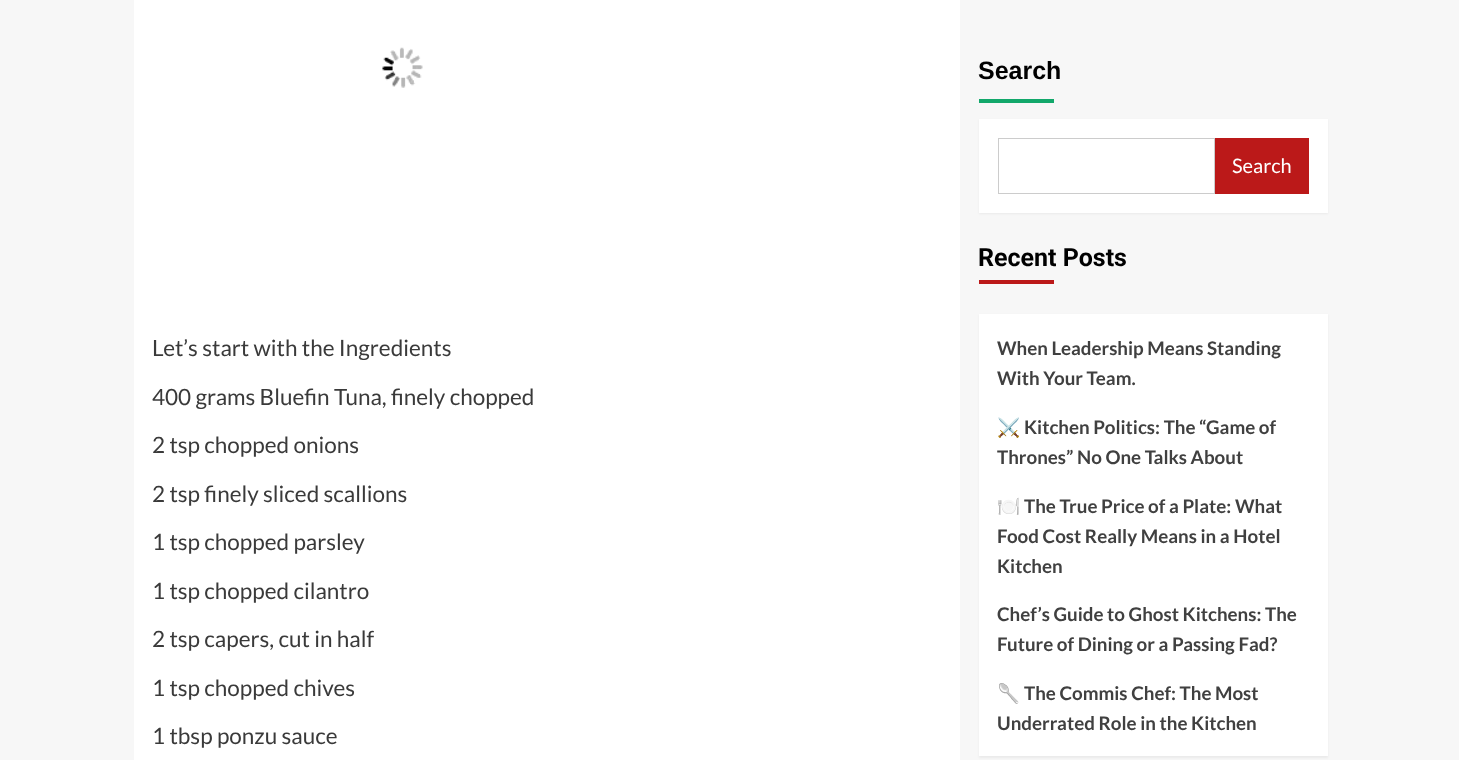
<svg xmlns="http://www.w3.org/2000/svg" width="1459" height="760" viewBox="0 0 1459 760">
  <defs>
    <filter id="blur1" x="-50%" y="-200%" width="200%" height="500%"><feGaussianBlur stdDeviation="1"/></filter>
  </defs>
  <rect width="100%" height="100%" fill="#f7f7f7"/>
  <rect x="134" y="0" width="826" height="760" fill="#ffffff"/>
  <image x="382" y="47" width="41" height="41" href="img1.png"/>
  <text x="152" y="356" font-family="Lato" font-size="22.5" fill="#3a3a3a">Let’s start with the Ingredients</text>
  <text x="152" y="405" font-family="Lato" font-size="22.5" fill="#3a3a3a">400 grams Bluefin Tuna, finely chopped</text>
  <text x="152" y="453" font-family="Lato" font-size="22.5" fill="#3a3a3a">2 tsp chopped onions</text>
  <text x="152" y="502" font-family="Lato" font-size="22.5" fill="#3a3a3a">2 tsp finely sliced scallions</text>
  <text x="152" y="550" font-family="Lato" font-size="22.5" fill="#3a3a3a">1 tsp chopped parsley</text>
  <text x="152" y="599" font-family="Lato" font-size="22.5" fill="#3a3a3a">1 tsp chopped cilantro</text>
  <text x="152" y="647" font-family="Lato" font-size="22.5" fill="#3a3a3a">2 tsp capers, cut in half</text>
  <text x="152" y="696" font-family="Lato" font-size="22.5" fill="#3a3a3a">1 tsp chopped chives</text>
  <text x="152" y="744" font-family="Lato" font-size="22.5" fill="#3a3a3a">1 tbsp ponzu sauce</text>
  <text x="978" y="79" font-family="Liberation Sans" font-size="25" font-weight="bold" fill="#000000">Search</text>
  <rect x="979" y="99" width="75" height="4" fill="#12a86b"/>
  <rect x="979" y="120" width="349" height="94" fill="#000000" fill-opacity="0.05" filter="url(#blur1)"/>
  <rect x="979" y="119" width="349" height="94" fill="#ffffff"/>
  <rect x="998.5" y="138.5" width="216" height="55" fill="none" stroke="#cccccc"/>
  <rect x="1215" y="138" width="94" height="56" fill="#bb1919"/>
  <text x="1232" y="173" font-family="Lato" font-size="20" fill="#ffffff">Search</text>
  <text x="978" y="266" font-family="Roboto" font-size="25" font-weight="bold" fill="#000000">Recent Posts</text>
  <rect x="979" y="280" width="75" height="4" fill="#bb1919"/>
  <rect x="979" y="315" width="349" height="443" fill="#000000" fill-opacity="0.05" filter="url(#blur1)"/>
  <rect x="979" y="314" width="349" height="442" fill="#ffffff"/>
  <text x="997" y="355" font-family="Lato" font-size="18.75" font-weight="bold" fill="#404040">When Leadership Means Standing</text>
  <text x="997" y="385" font-family="Lato" font-size="18.75" font-weight="bold" fill="#404040">With Your Team.</text>
  <text x="997" y="434" font-family="Noto Color Emoji" font-size="18.75" font-weight="bold" fill="#404040">⚔️</text>
  <text x="1024" y="434" font-family="Lato" font-size="18.75" font-weight="bold" fill="#404040">Kitchen Politics: The “Game of</text>
  <text x="997" y="464" font-family="Lato" font-size="18.75" font-weight="bold" fill="#404040">Thrones” No One Talks About</text>
  <text x="997" y="513" font-family="Noto Color Emoji" font-size="18.75" font-weight="bold" fill="#404040">🍽️</text>
  <text x="1024" y="513" font-family="Lato" font-size="18.75" font-weight="bold" fill="#404040">The True Price of a Plate: What</text>
  <text x="997" y="543" font-family="Lato" font-size="18.75" font-weight="bold" fill="#404040">Food Cost Really Means in a Hotel</text>
  <text x="997" y="573" font-family="Lato" font-size="18.75" font-weight="bold" fill="#404040">Kitchen</text>
  <text x="997" y="621" font-family="Lato" font-size="18.75" font-weight="bold" fill="#404040">Chef’s Guide to Ghost Kitchens: The</text>
  <text x="997" y="651" font-family="Lato" font-size="18.75" font-weight="bold" fill="#404040">Future of Dining or a Passing Fad?</text>
  <text x="997" y="700" font-family="Noto Color Emoji" font-size="18.75" font-weight="bold" fill="#404040">🥄</text>
  <text x="1024" y="700" font-family="Lato" font-size="18.75" font-weight="bold" fill="#404040">The Commis Chef: The Most</text>
  <text x="997" y="730" font-family="Lato" font-size="18.75" font-weight="bold" fill="#404040">Underrated Role in the Kitchen</text>
</svg>
